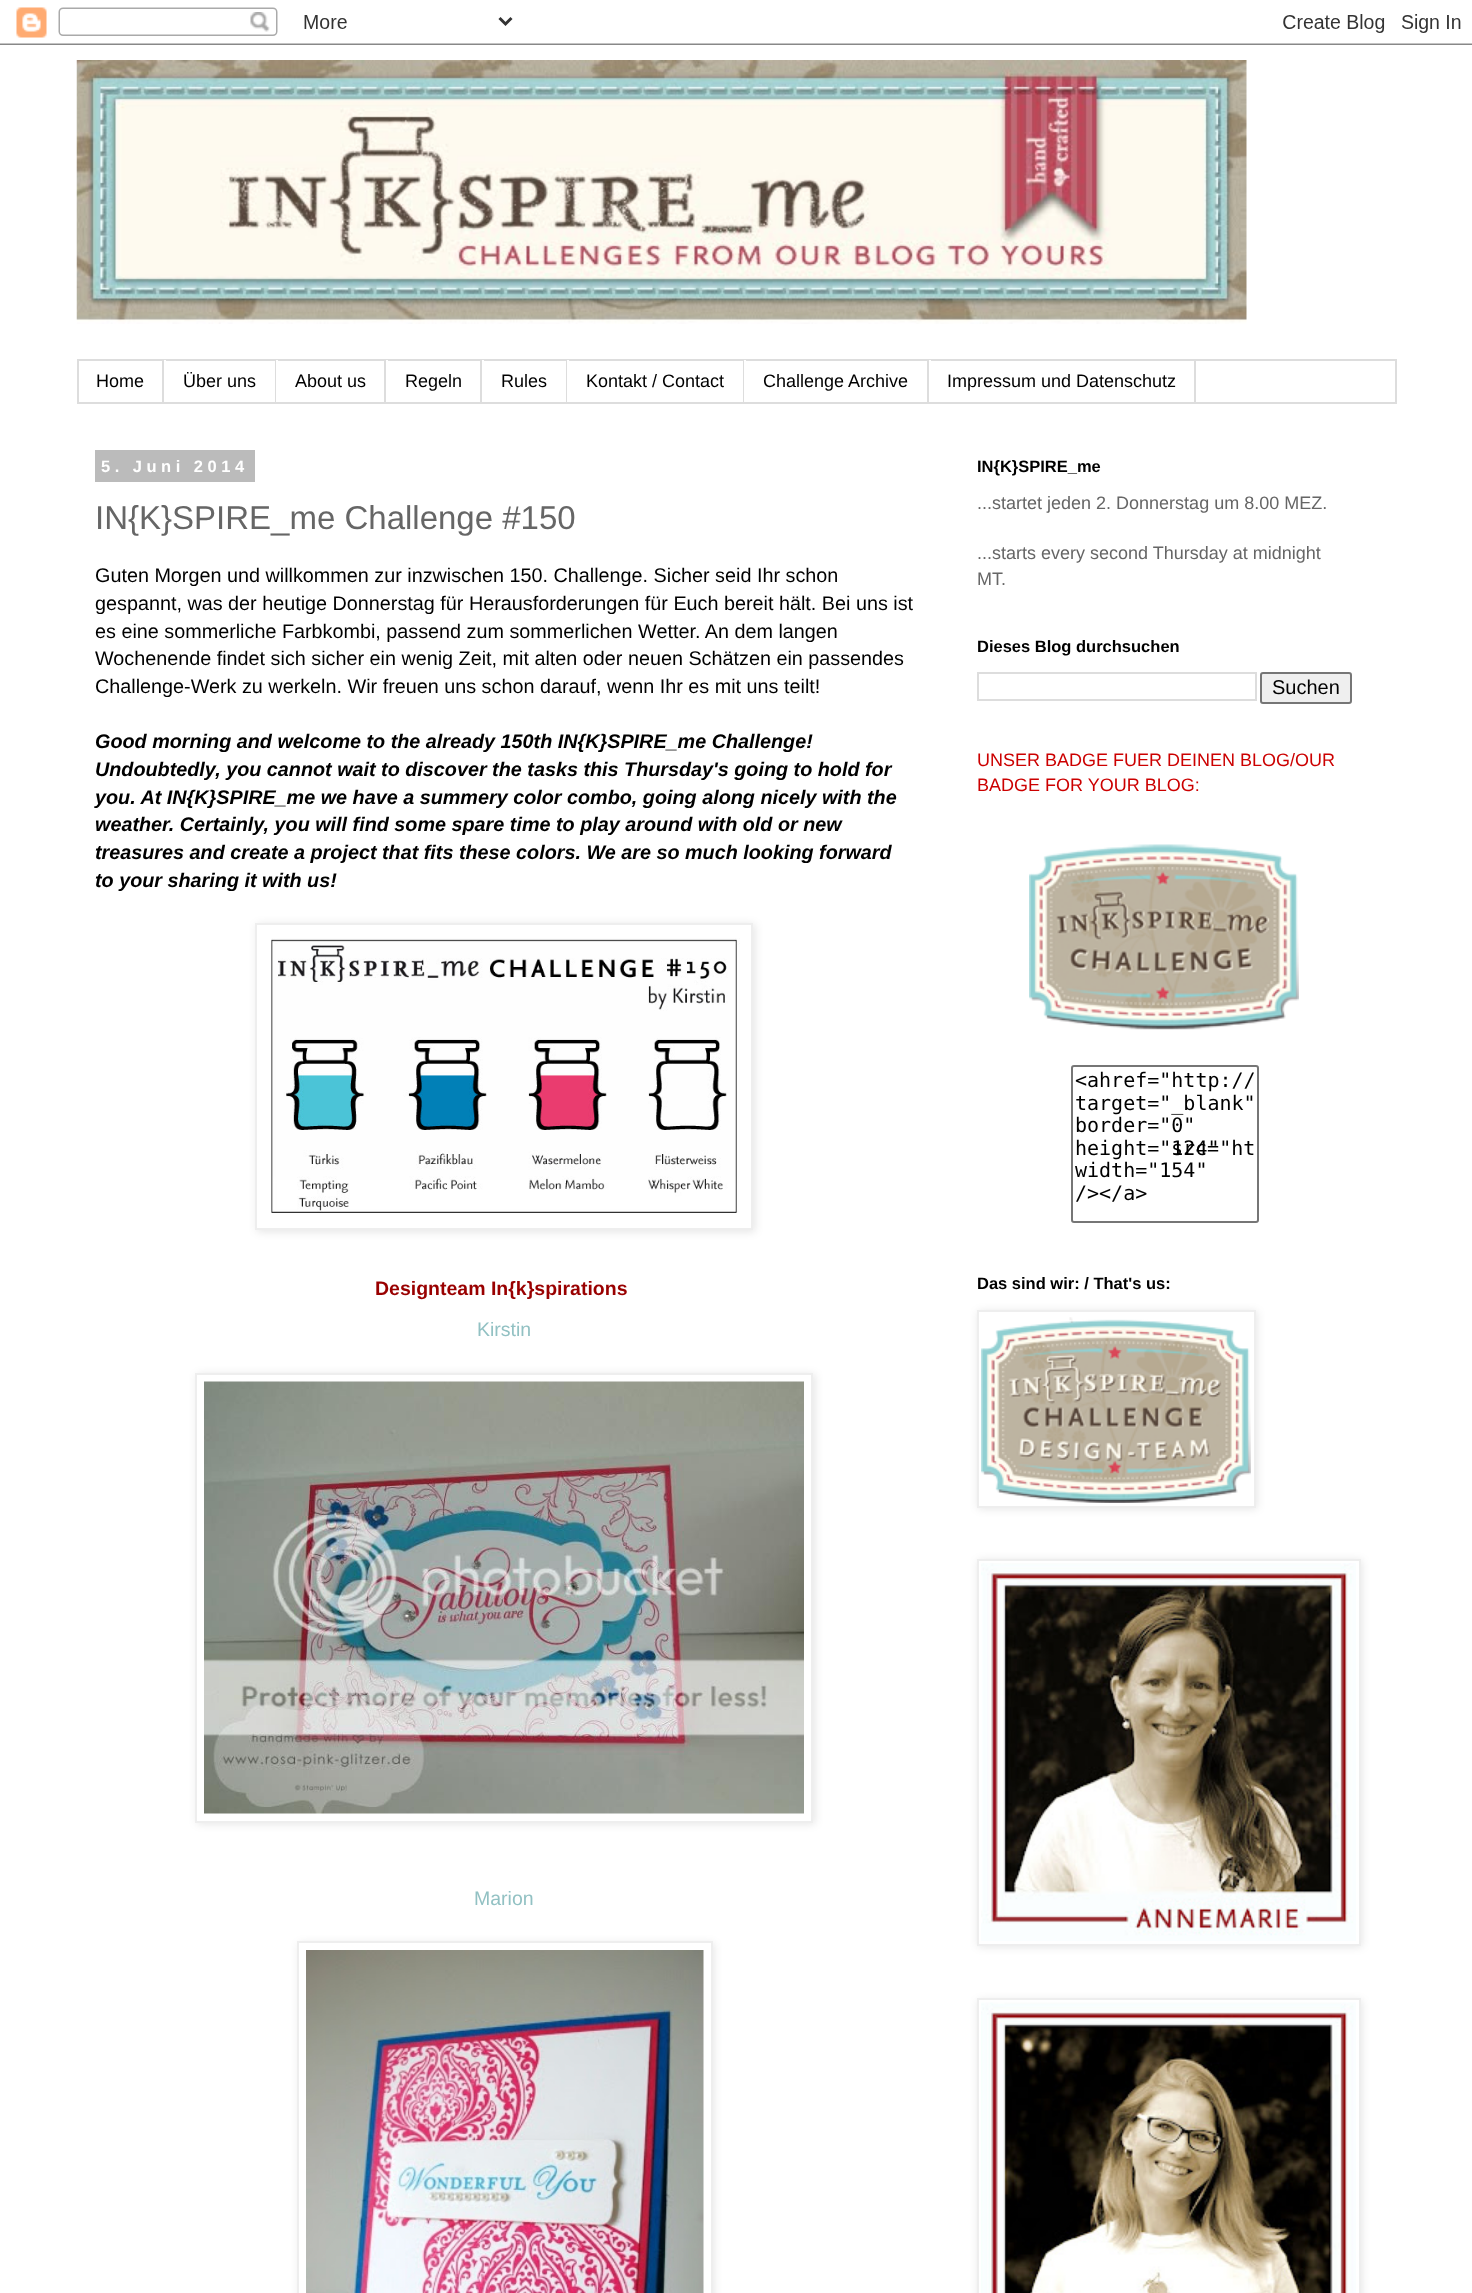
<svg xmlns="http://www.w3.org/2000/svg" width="1472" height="2293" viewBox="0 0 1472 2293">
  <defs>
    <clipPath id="clip1"><path d="M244 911H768V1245H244ZM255 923H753V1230H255Z" clip-rule="evenodd"/></clipPath>
    <filter id="blur1" x="-50%" y="-200%" width="200%" height="500%"><feGaussianBlur stdDeviation="4"/></filter>
  </defs>
  <rect width="100%" height="100%" fill="#ffffff"/>
  <image x="0" y="7" width="1472" height="38" href="img1.png"/>
  <image x="76" y="60" width="1171" height="264" href="img2.png"/>
  <rect x="78" y="360" width="1318" height="43" fill="none" stroke="#dddddd" stroke-width="2"/>
  <rect x="162" y="360" width="2" height="42" fill="#dddddd"/>
  <text x="96" y="387" font-family="Liberation Sans" font-size="18" fill="#000000">Home</text>
  <rect x="275" y="360" width="1" height="42" fill="#dddddd"/>
  <rect x="164" y="360" width="2" height="1" fill="#ffffff"/>
  <text x="183" y="387" font-family="Liberation Sans" font-size="18" fill="#000000">Über uns</text>
  <rect x="384" y="360" width="2" height="42" fill="#dddddd"/>
  <rect x="276" y="360" width="2" height="1" fill="#ffffff"/>
  <text x="295" y="387" font-family="Liberation Sans" font-size="18" fill="#000000">About us</text>
  <rect x="480" y="360" width="2" height="42" fill="#dddddd"/>
  <rect x="386" y="360" width="2" height="1" fill="#ffffff"/>
  <text x="405" y="387" font-family="Liberation Sans" font-size="18" fill="#000000">Regeln</text>
  <rect x="566" y="360" width="1" height="42" fill="#dddddd"/>
  <rect x="482" y="360" width="2" height="1" fill="#ffffff"/>
  <text x="501" y="387" font-family="Liberation Sans" font-size="18" fill="#000000">Rules</text>
  <rect x="743" y="360" width="1" height="42" fill="#dddddd"/>
  <rect x="567" y="360" width="2" height="1" fill="#ffffff"/>
  <text x="586" y="387" font-family="Liberation Sans" font-size="18" fill="#000000">Kontakt / Contact</text>
  <rect x="927" y="360" width="2" height="42" fill="#dddddd"/>
  <rect x="744" y="360" width="2" height="1" fill="#ffffff"/>
  <text x="763" y="387" font-family="Liberation Sans" font-size="18" fill="#000000">Challenge Archive</text>
  <rect x="1194" y="360" width="2" height="42" fill="#dddddd"/>
  <rect x="929" y="360" width="2" height="1" fill="#ffffff"/>
  <text x="947" y="387" font-family="Liberation Sans" font-size="18" fill="#000000">Impressum und Datenschutz</text>
  <rect x="95" y="450" width="160" height="32" fill="#bbbbbb"/>
  <text x="101" y="472" font-family="Liberation Sans" font-size="16.5" font-weight="bold" letter-spacing="4.5" fill="#ffffff">5. Juni 2014</text>
  <text x="95" y="529" font-family="Liberation Sans" font-size="33" fill="#666666">IN{K}SPIRE_me Challenge #150</text>
  <text x="95" y="582" font-family="Liberation Sans" font-size="19.8" fill="#000000">Guten Morgen und willkommen zur inzwischen 150. Challenge. Sicher seid Ihr schon</text>
  <text x="95" y="610" font-family="Liberation Sans" font-size="19.8" fill="#000000">gespannt, was der heutige Donnerstag für Herausforderungen für Euch bereit hält. Bei uns ist</text>
  <text x="95" y="638" font-family="Liberation Sans" font-size="19.8" fill="#000000">es eine sommerliche Farbkombi, passend zum sommerlichen Wetter. An dem langen</text>
  <text x="95" y="665" font-family="Liberation Sans" font-size="19.8" fill="#000000">Wochenende findet sich sicher ein wenig Zeit, mit alten oder neuen Schätzen ein passendes</text>
  <text x="95" y="693" font-family="Liberation Sans" font-size="19.8" fill="#000000">Challenge-Werk zu werkeln. Wir freuen uns schon darauf, wenn Ihr es mit uns teilt!</text>
  <text x="95" y="748" font-family="Liberation Sans" font-size="19.8" font-weight="bold" font-style="italic" fill="#000000">Good morning and welcome to the already 150th IN{K}SPIRE_me Challenge!</text>
  <text x="95" y="776" font-family="Liberation Sans" font-size="19.8" font-weight="bold" font-style="italic" fill="#000000">Undoubtedly, you cannot wait to discover the tasks this Thursday's going to hold for</text>
  <text x="95" y="804" font-family="Liberation Sans" font-size="19.8" font-weight="bold" font-style="italic" fill="#000000">you. At IN{K}SPIRE_me we have a summery color combo, going along nicely with the</text>
  <text x="95" y="831" font-family="Liberation Sans" font-size="19.8" font-weight="bold" font-style="italic" fill="#000000">weather. Certainly, you will find some spare time to play around with old or new</text>
  <text x="95" y="859" font-family="Liberation Sans" font-size="19.8" font-weight="bold" font-style="italic" fill="#000000">treasures and create a project that fits these colors. We are so much looking forward</text>
  <text x="95" y="887" font-family="Liberation Sans" font-size="19.8" font-weight="bold" font-style="italic" fill="#000000">to your sharing it with us!</text>
  <g clip-path="url(#clip1)">
    <rect x="257" y="924" width="498" height="308" fill="#000000" fill-opacity="0.1" filter="url(#blur1)"/>
  </g>
  <rect x="256" y="924" width="496" height="305" fill="none" stroke="#eeeeee" stroke-width="2"/>
  <image x="271" y="938" width="469" height="275" href="img3.png"/>
  <text x="375" y="1295" font-family="Liberation Sans" font-size="19.5" font-weight="bold" fill="#990000">Designteam In{k}spirations</text>
  <text x="477" y="1336" font-family="Liberation Sans" font-size="19.5" fill="#92c1c3">Kirstin</text>
  <rect x="197" y="1374" width="618" height="450" fill="#000000" fill-opacity="0.1" filter="url(#blur1)"/>
  <rect x="196" y="1374" width="616" height="448" fill="#ffffff" stroke="#eeeeee" stroke-width="2"/>
  <image x="204" y="1381" width="600" height="433" href="img4.png"/>
  <text x="474" y="1905" font-family="Liberation Sans" font-size="19.5" fill="#92c1c3">Marion</text>
  <rect x="299" y="1943" width="415" height="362" fill="#000000" fill-opacity="0.1" filter="url(#blur1)"/>
  <rect x="298" y="1942" width="414" height="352" fill="#ffffff" stroke="#eeeeee" stroke-width="2"/>
  <image x="306" y="1950" width="398" height="343" href="img5.png"/>
  <text x="977" y="472" font-family="Liberation Sans" font-size="16.5" font-weight="bold" fill="#000000">IN{K}SPIRE_me</text>
  <text x="977" y="509" font-family="Liberation Sans" font-size="18" fill="#666666">...startet jeden 2. Donnerstag um 8.00 MEZ.</text>
  <text x="977" y="559" font-family="Liberation Sans" font-size="18" fill="#666666">...starts every second Thursday at midnight</text>
  <text x="977" y="585" font-family="Liberation Sans" font-size="18" fill="#666666">MT.</text>
  <text x="977" y="652" font-family="Liberation Sans" font-size="16.5" font-weight="bold" fill="#000000">Dieses Blog durchsuchen</text>
  <rect x="978" y="673" width="278" height="27" fill="none" stroke="#dddddd" stroke-width="2"/>
  <rect x="1261" y="673" width="90" height="30" rx="2" fill="#efefef" stroke="#767676" stroke-width="2"/>
  <text x="1272" y="694" font-family="Liberation Sans" font-size="20" fill="#000000">Suchen</text>
  <text x="977" y="766" font-family="Liberation Sans" font-size="18" fill="#cc0000">UNSER BADGE FUER DEINEN BLOG/OUR</text>
  <text x="977" y="791" font-family="Liberation Sans" font-size="18" fill="#cc0000">BADGE FOR YOUR BLOG:</text>
  <image x="1029" y="844" width="270" height="186" href="img6.png"/>
  <rect x="1072" y="1066" width="186" height="156" rx="2" fill="none" stroke="#767676" stroke-width="2"/>
  <text x="1075" y="1087" font-family="DejaVu Sans Mono" font-size="20" fill="#000000">&lt;ahref="http://</text>
  <text x="1075" y="1110" font-family="DejaVu Sans Mono" font-size="20" fill="#000000">target="_blank"</text>
  <text x="1075" y="1132" font-family="DejaVu Sans Mono" font-size="20" fill="#000000">border="0"</text>
  <text x="1075" y="1155" font-family="DejaVu Sans Mono" font-size="20" fill="#000000">height="124"</text>
  <text x="1171" y="1155" font-family="DejaVu Sans Mono" font-size="20" fill="#000000">src="ht</text>
  <text x="1075" y="1177" font-family="DejaVu Sans Mono" font-size="20" fill="#000000">width="154"</text>
  <text x="1075" y="1200" font-family="DejaVu Sans Mono" font-size="20" fill="#000000">/&gt;&lt;/a&gt;</text>
  <text x="977" y="1289" font-family="Liberation Sans" font-size="16.5" font-weight="bold" fill="#000000">Das sind wir: / That's us:</text>
  <rect x="978" y="1311" width="279" height="198" fill="#000000" fill-opacity="0.1" filter="url(#blur1)"/>
  <rect x="978" y="1311" width="277" height="196" fill="#ffffff" stroke="#eeeeee" stroke-width="2"/>
  <image x="981" y="1317" width="270" height="186" href="img7.png"/>
  <rect x="978" y="1560" width="384" height="387" fill="#000000" fill-opacity="0.1" filter="url(#blur1)"/>
  <rect x="978" y="1560" width="382" height="385" fill="#ffffff" stroke="#eeeeee" stroke-width="2"/>
  <image x="981" y="1563" width="375" height="378" href="img8.png"/>
  <rect x="978" y="2000" width="384" height="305" fill="#000000" fill-opacity="0.1" filter="url(#blur1)"/>
  <rect x="978" y="1999" width="382" height="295" fill="#ffffff" stroke="#eeeeee" stroke-width="2"/>
  <image x="981" y="2002" width="375" height="291" href="img9.png"/>
</svg>
